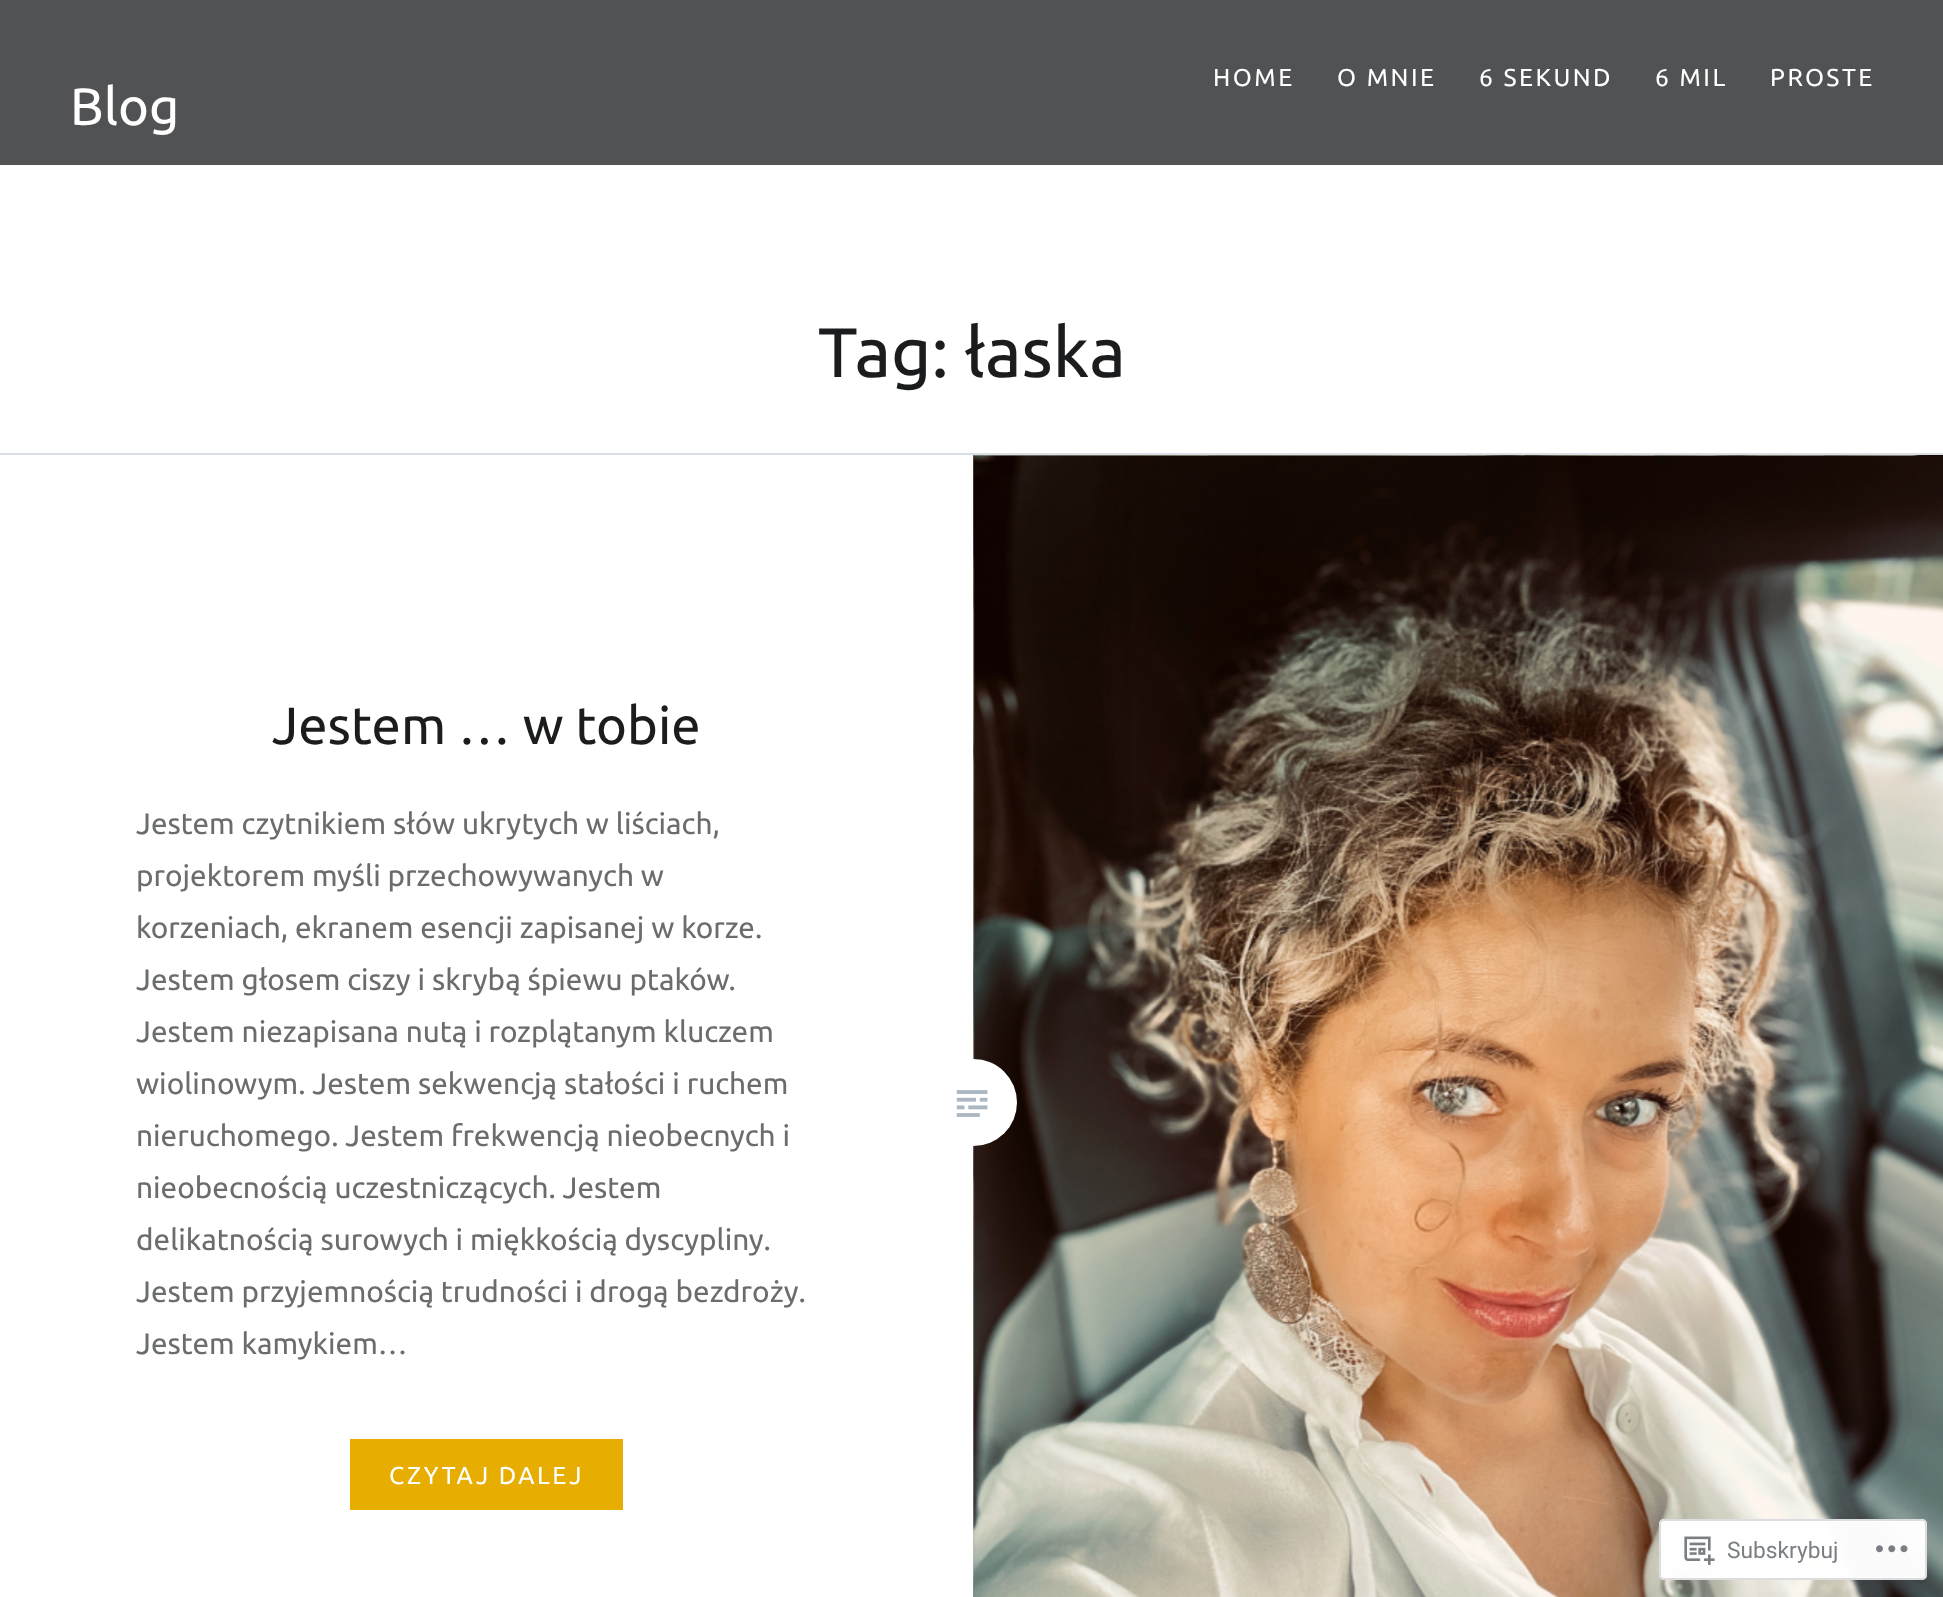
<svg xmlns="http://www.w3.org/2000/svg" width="1943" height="1597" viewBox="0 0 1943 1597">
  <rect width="100%" height="100%" fill="#ffffff"/>
  <rect x="0" y="0" width="1943" height="165" fill="#505254"/>
  <text x="1213" y="86" font-family="Ubuntu" font-size="24.5" letter-spacing="2.5" fill="#ffffff">HOME</text>
  <text x="1337" y="86" font-family="Ubuntu" font-size="24.5" letter-spacing="2.5" fill="#ffffff">O MNIE</text>
  <text x="1479" y="86" font-family="Ubuntu" font-size="24.5" letter-spacing="2.5" fill="#ffffff">6 SEKUND</text>
  <text x="1655" y="86" font-family="Ubuntu" font-size="24.5" letter-spacing="2.5" fill="#ffffff">6 MIL</text>
  <text x="1770" y="86" font-family="Ubuntu" font-size="24.5" letter-spacing="2.5" fill="#ffffff">PROSTE</text>
  <text x="70" y="125" font-family="Ubuntu" font-size="52.5" fill="#ffffff">Blog</text>
  <rect x="0" y="453" width="1943" height="2" fill="#d9dfe5"/>
  <text x="818" y="377" font-family="Ubuntu" font-size="70" fill="#1a1c1e">Tag: łaska</text>
  <text x="272" y="744" font-family="Ubuntu" font-size="52.5" fill="#1a1c1e">Jestem … w tobie</text>
  <text x="136" y="834" font-family="Ubuntu" font-size="29.75" fill="#6a6c6e">Jestem czytnikiem słów ukrytych w liściach,</text>
  <text x="136" y="886" font-family="Ubuntu" font-size="29.75" fill="#6a6c6e">projektorem myśli przechowywanych w</text>
  <text x="136" y="938" font-family="Ubuntu" font-size="29.75" fill="#6a6c6e">korzeniach, ekranem esencji zapisanej w korze.</text>
  <text x="136" y="990" font-family="Ubuntu" font-size="29.75" fill="#6a6c6e">Jestem głosem ciszy i skrybą śpiewu ptaków.</text>
  <text x="136" y="1042" font-family="Ubuntu" font-size="29.75" fill="#6a6c6e">Jestem niezapisana nutą i rozplątanym kluczem</text>
  <text x="136" y="1094" font-family="Ubuntu" font-size="29.75" fill="#6a6c6e">wiolinowym. Jestem sekwencją stałości i ruchem</text>
  <text x="136" y="1146" font-family="Ubuntu" font-size="29.75" fill="#6a6c6e">nieruchomego. Jestem frekwencją nieobecnych i</text>
  <text x="136" y="1198" font-family="Ubuntu" font-size="29.75" fill="#6a6c6e">nieobecnością uczestniczących. Jestem</text>
  <text x="136" y="1250" font-family="Ubuntu" font-size="29.75" fill="#6a6c6e">delikatnością surowych i miękkością dyscypliny.</text>
  <text x="136" y="1302" font-family="Ubuntu" font-size="29.75" fill="#6a6c6e">Jestem przyjemnością trudności i drogą bezdroży.</text>
  <text x="136" y="1354" font-family="Ubuntu" font-size="29.75" fill="#6a6c6e">Jestem kamykiem…</text>
  <rect x="350" y="1439" width="273" height="71" fill="#e7ae01"/>
  <text x="389" y="1484" font-family="Ubuntu" font-size="24.5" letter-spacing="2.5" fill="#ffffff">CZYTAJ DALEJ</text>
  <image x="973" y="455" width="970" height="1142" href="img2.png"/>
  <rect x="929" y="1059" width="88" height="87" rx="43.5" fill="#ffffff"/>
  <image x="956" y="1090" width="32" height="27" href="img1.png"/>
  <rect x="1659" y="1519" width="268" height="61" rx="5" fill="#ffffff" fill-opacity="0.98"/>
  <rect x="1660" y="1520" width="266" height="59" rx="4" fill="none" stroke="#dcdcde" stroke-opacity="0.98" stroke-width="2"/>
  <image x="1684" y="1536" width="31" height="29" href="img3.png"/>
  <text x="1727" y="1558" font-family="Roboto" font-size="22.75" fill="#7b7f84">Subskrybuj</text>
  <image x="1876" y="1545" width="32" height="8" href="img4.png"/>
</svg>
